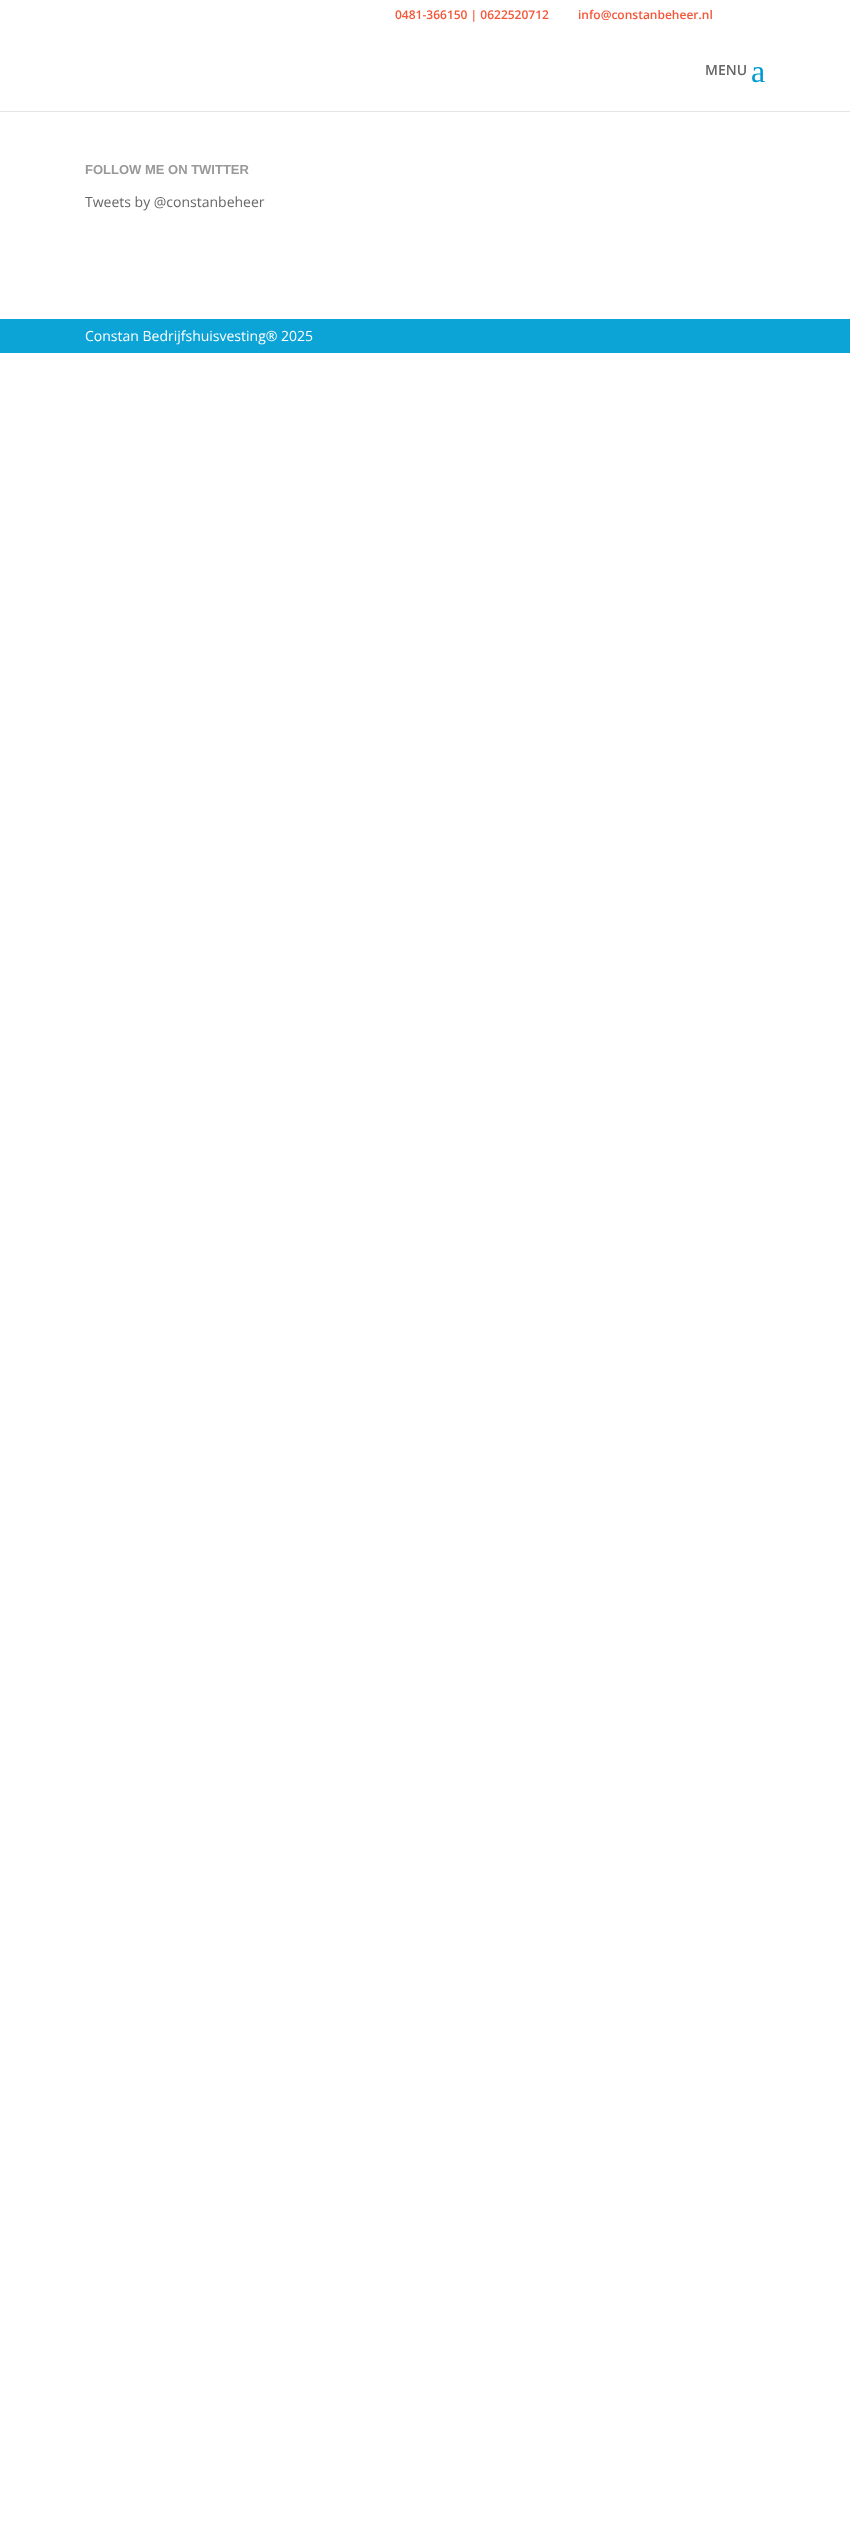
<svg xmlns="http://www.w3.org/2000/svg" width="850" height="2540" viewBox="0 0 850 2540">
  <rect width="100%" height="100%" fill="#ffffff"/>
  <text x="395" y="19" font-family="Open Sans" font-size="12" font-weight="600" fill="#f45738">0481-366150 | 0622520712</text>
  <text x="578" y="19" font-family="Open Sans" font-size="12" font-weight="600" fill="#f45738">info@constanbeheer.nl</text>
  <rect x="0" y="111" width="850" height="1" fill="#e6e6e6"/>
  <text x="705" y="75" font-family="Open Sans" font-size="14" font-weight="600" fill="#666666">MENU</text>
  <text x="751" y="82" font-family="Liberation Serif" font-size="32" fill="#009ad2">a</text>
  <text x="85" y="174" font-family="Liberation Sans" font-size="13" font-weight="bold" fill="#999999">FOLLOW ME ON TWITTER</text>
  <text x="85" y="207" font-family="Open Sans" font-size="14" fill="#666666">Tweets by @constanbeheer</text>
  <rect x="0" y="319" width="850" height="34" fill="#0ca3d6"/>
  <text x="85" y="341" font-family="Open Sans" font-size="14" fill="#ffffff">Constan Bedrijfshuisvesting® 2025</text>
</svg>
